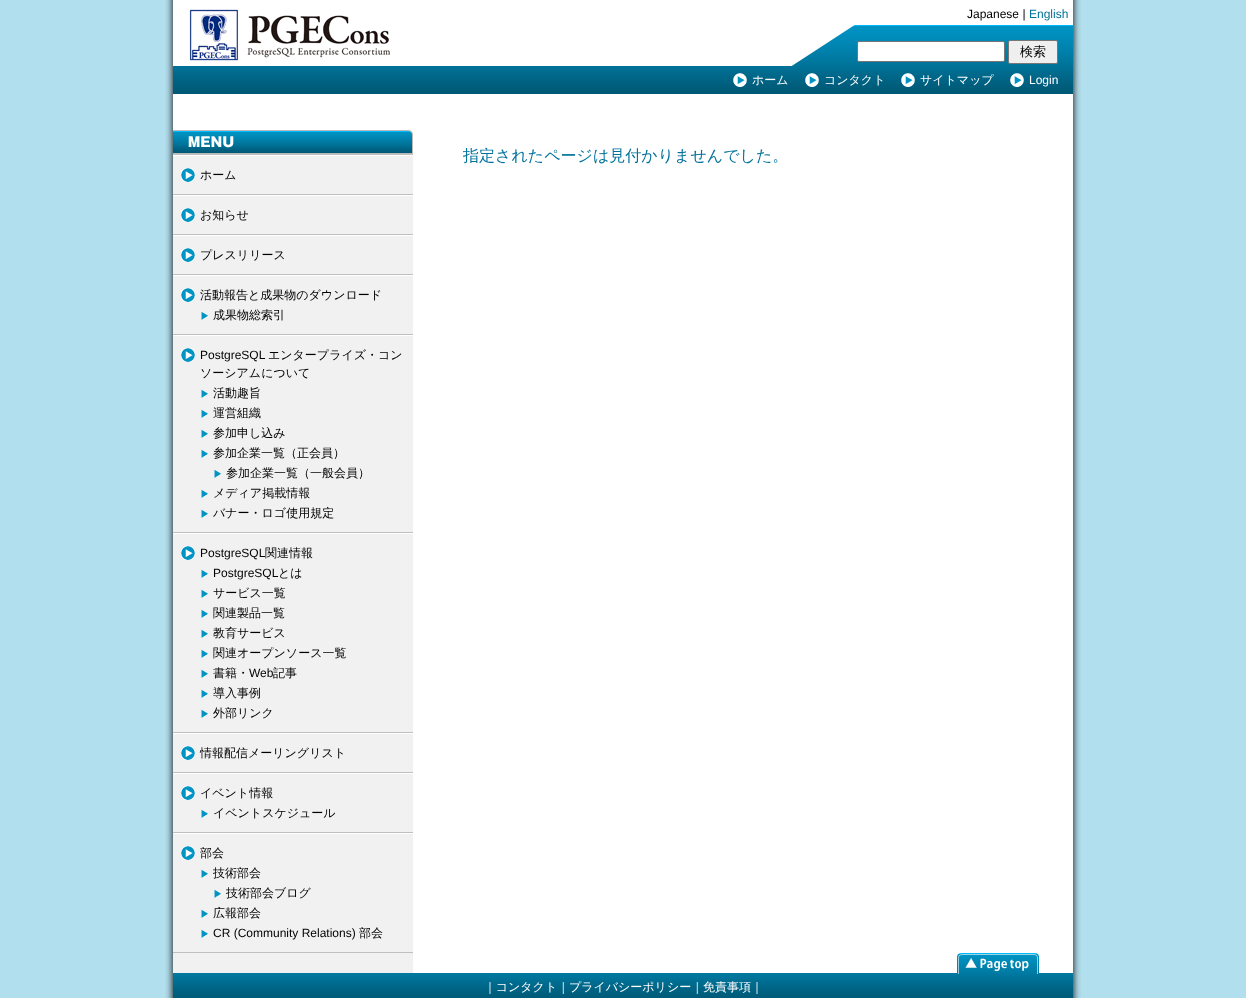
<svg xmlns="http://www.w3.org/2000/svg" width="1246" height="998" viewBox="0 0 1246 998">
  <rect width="100%" height="100%" fill="#b2dfed"/>
  <image x="165" y="0" width="916" height="998" href="img1.png"/>
  <rect x="173" y="156" width="240" height="796" fill="#f1f1f1"/>
  <image x="173" y="0" width="900" height="95" href="img2.png"/>
  <image x="189" y="9" width="202" height="52" href="img3.png"/>
  <text x="967" y="18" font-family="Liberation Sans" font-size="12" fill="#000000">Japanese |</text>
  <text x="1029" y="18" font-family="Liberation Sans" font-size="12" fill="#02729b">English</text>
  <rect x="857.5" y="41.5" width="147" height="20" rx="1.5" fill="#ffffff" stroke="#767676"/>
  <rect x="1008.5" y="40.5" width="49" height="23" rx="1.5" fill="#efefef" stroke="#767676"/>
  <text x="1020" y="56" font-family="WenQuanYi Zen Hei" font-size="13" font-weight="500" fill="#000000">検索</text>
  <image x="733" y="73" width="14" height="14" href="img4.png"/>
  <text x="752" y="84" font-family="WenQuanYi Zen Hei" font-size="12" font-weight="500" fill="#ffffff">ホーム</text>
  <image x="805" y="73" width="14" height="14" href="img4.png"/>
  <text x="824" y="84" font-family="WenQuanYi Zen Hei" font-size="12" font-weight="500" fill="#ffffff">コンタクト</text>
  <image x="901" y="73" width="14" height="14" href="img4.png"/>
  <text x="920" y="84" font-family="WenQuanYi Zen Hei" font-size="12" font-weight="500" fill="#ffffff">サイトマップ</text>
  <image x="1010" y="73" width="14" height="14" href="img4.png"/>
  <text x="1029" y="84" font-family="Liberation Sans" font-size="12" fill="#ffffff">Login</text>
  <text x="463" y="161" font-family="WenQuanYi Zen Hei" font-size="16" font-weight="500" fill="#02729b">指定されたページは見付かりませんでした。</text>
  <image x="173" y="130" width="240" height="25" href="img5.png"/>
  <image x="181" y="168" width="14" height="14" href="img6.png"/>
  <rect x="173" y="194" width="240" height="1" fill="#bfbfbf"/>
  <text x="200" y="179" font-family="WenQuanYi Zen Hei" font-size="12" font-weight="500" fill="#000000">ホーム</text>
  <image x="181" y="208" width="14" height="14" href="img6.png"/>
  <rect x="173" y="195" width="240" height="1" fill="#ffffff"/>
  <rect x="173" y="234" width="240" height="1" fill="#bfbfbf"/>
  <text x="200" y="219" font-family="WenQuanYi Zen Hei" font-size="12" font-weight="500" fill="#000000">お知らせ</text>
  <image x="181" y="248" width="14" height="14" href="img6.png"/>
  <rect x="173" y="235" width="240" height="1" fill="#ffffff"/>
  <rect x="173" y="274" width="240" height="1" fill="#bfbfbf"/>
  <text x="200" y="259" font-family="WenQuanYi Zen Hei" font-size="12" font-weight="500" fill="#000000">プレスリリース</text>
  <image x="181" y="288" width="14" height="14" href="img6.png"/>
  <rect x="173" y="275" width="240" height="1" fill="#ffffff"/>
  <rect x="173" y="334" width="240" height="1" fill="#bfbfbf"/>
  <text x="200" y="299" font-family="WenQuanYi Zen Hei" font-size="12" font-weight="500" fill="#000000">活動報告と成果物のダウンロード</text>
  <image x="201" y="311" width="7" height="9" href="img7.png"/>
  <text x="213" y="319" font-family="WenQuanYi Zen Hei" font-size="12" font-weight="500" fill="#000000">成果物総索引</text>
  <image x="181" y="348" width="14" height="14" href="img6.png"/>
  <rect x="173" y="335" width="240" height="1" fill="#ffffff"/>
  <rect x="173" y="532" width="240" height="1" fill="#bfbfbf"/>
  <text x="200" y="359" font-family="Liberation Sans" font-size="12" fill="#000000">PostgreSQL</text>
  <text x="268" y="359" font-family="WenQuanYi Zen Hei" font-size="12" font-weight="500" fill="#000000">エンタープライズ・コン</text>
  <text x="200" y="377" font-family="WenQuanYi Zen Hei" font-size="12" font-weight="500" fill="#000000">ソーシアムについて</text>
  <image x="201" y="389" width="7" height="9" href="img7.png"/>
  <text x="213" y="397" font-family="WenQuanYi Zen Hei" font-size="12" font-weight="500" fill="#000000">活動趣旨</text>
  <image x="201" y="409" width="7" height="9" href="img7.png"/>
  <text x="213" y="417" font-family="WenQuanYi Zen Hei" font-size="12" font-weight="500" fill="#000000">運営組織</text>
  <image x="201" y="429" width="7" height="9" href="img7.png"/>
  <text x="213" y="437" font-family="WenQuanYi Zen Hei" font-size="12" font-weight="500" fill="#000000">参加申し込み</text>
  <image x="201" y="449" width="7" height="9" href="img7.png"/>
  <text x="213" y="457" font-family="WenQuanYi Zen Hei" font-size="12" font-weight="500" fill="#000000">参加企業一覧（正会員）</text>
  <image x="214" y="469" width="7" height="9" href="img7.png"/>
  <text x="226" y="477" font-family="WenQuanYi Zen Hei" font-size="12" font-weight="500" fill="#000000">参加企業一覧（一般会員）</text>
  <image x="201" y="489" width="7" height="9" href="img7.png"/>
  <text x="213" y="497" font-family="WenQuanYi Zen Hei" font-size="12" font-weight="500" fill="#000000">メディア掲載情報</text>
  <image x="201" y="509" width="7" height="9" href="img7.png"/>
  <text x="213" y="517" font-family="WenQuanYi Zen Hei" font-size="12" font-weight="500" fill="#000000">バナー・ロゴ使用規定</text>
  <image x="181" y="546" width="14" height="14" href="img6.png"/>
  <rect x="173" y="533" width="240" height="1" fill="#ffffff"/>
  <rect x="173" y="732" width="240" height="1" fill="#bfbfbf"/>
  <text x="200" y="557" font-family="Liberation Sans" font-size="12" fill="#000000">PostgreSQL</text>
  <text x="265" y="557" font-family="WenQuanYi Zen Hei" font-size="12" font-weight="500" fill="#000000">関連情報</text>
  <image x="201" y="569" width="7" height="9" href="img7.png"/>
  <text x="213" y="577" font-family="Liberation Sans" font-size="12" fill="#000000">PostgreSQL</text>
  <text x="278" y="577" font-family="WenQuanYi Zen Hei" font-size="12" font-weight="500" fill="#000000">とは</text>
  <image x="201" y="589" width="7" height="9" href="img7.png"/>
  <text x="213" y="597" font-family="WenQuanYi Zen Hei" font-size="12" font-weight="500" fill="#000000">サービス一覧</text>
  <image x="201" y="609" width="7" height="9" href="img7.png"/>
  <text x="213" y="617" font-family="WenQuanYi Zen Hei" font-size="12" font-weight="500" fill="#000000">関連製品一覧</text>
  <image x="201" y="629" width="7" height="9" href="img7.png"/>
  <text x="213" y="637" font-family="WenQuanYi Zen Hei" font-size="12" font-weight="500" fill="#000000">教育サービス</text>
  <image x="201" y="649" width="7" height="9" href="img7.png"/>
  <text x="213" y="657" font-family="WenQuanYi Zen Hei" font-size="12" font-weight="500" fill="#000000">関連オープンソース一覧</text>
  <image x="201" y="669" width="7" height="9" href="img7.png"/>
  <text x="213" y="677" font-family="WenQuanYi Zen Hei" font-size="12" font-weight="500" fill="#000000">書籍・</text>
  <text x="249" y="677" font-family="Liberation Sans" font-size="12" fill="#000000">Web</text>
  <text x="273" y="677" font-family="WenQuanYi Zen Hei" font-size="12" font-weight="500" fill="#000000">記事</text>
  <image x="201" y="689" width="7" height="9" href="img7.png"/>
  <text x="213" y="697" font-family="WenQuanYi Zen Hei" font-size="12" font-weight="500" fill="#000000">導入事例</text>
  <image x="201" y="709" width="7" height="9" href="img7.png"/>
  <text x="213" y="717" font-family="WenQuanYi Zen Hei" font-size="12" font-weight="500" fill="#000000">外部リンク</text>
  <image x="181" y="746" width="14" height="14" href="img6.png"/>
  <rect x="173" y="733" width="240" height="1" fill="#ffffff"/>
  <rect x="173" y="772" width="240" height="1" fill="#bfbfbf"/>
  <text x="200" y="757" font-family="WenQuanYi Zen Hei" font-size="12" font-weight="500" fill="#000000">情報配信メーリングリスト</text>
  <image x="181" y="786" width="14" height="14" href="img6.png"/>
  <rect x="173" y="773" width="240" height="1" fill="#ffffff"/>
  <rect x="173" y="832" width="240" height="1" fill="#bfbfbf"/>
  <text x="200" y="797" font-family="WenQuanYi Zen Hei" font-size="12" font-weight="500" fill="#000000">イベント情報</text>
  <image x="201" y="809" width="7" height="9" href="img7.png"/>
  <text x="213" y="817" font-family="WenQuanYi Zen Hei" font-size="12" font-weight="500" fill="#000000">イベントスケジュール</text>
  <image x="181" y="846" width="14" height="14" href="img6.png"/>
  <rect x="173" y="833" width="240" height="1" fill="#ffffff"/>
  <rect x="173" y="952" width="240" height="1" fill="#bfbfbf"/>
  <text x="200" y="857" font-family="WenQuanYi Zen Hei" font-size="12" font-weight="500" fill="#000000">部会</text>
  <image x="201" y="869" width="7" height="9" href="img7.png"/>
  <text x="213" y="877" font-family="WenQuanYi Zen Hei" font-size="12" font-weight="500" fill="#000000">技術部会</text>
  <image x="214" y="889" width="7" height="9" href="img7.png"/>
  <text x="226" y="897" font-family="WenQuanYi Zen Hei" font-size="12" font-weight="500" fill="#000000">技術部会ブログ</text>
  <image x="201" y="909" width="7" height="9" href="img7.png"/>
  <text x="213" y="917" font-family="WenQuanYi Zen Hei" font-size="12" font-weight="500" fill="#000000">広報部会</text>
  <image x="201" y="929" width="7" height="9" href="img7.png"/>
  <text x="213" y="937" font-family="Liberation Sans" font-size="12" fill="#000000">CR (Community Relations)</text>
  <text x="359" y="937" font-family="WenQuanYi Zen Hei" font-size="12" font-weight="500" fill="#000000">部会</text>
  <rect x="173" y="953" width="240" height="20" fill="#f1f1f1"/>
  <image x="957" y="953" width="82" height="20" href="img8.png"/>
  <image x="173" y="973" width="900" height="25" href="img9.png"/>
  <text x="484" y="991" font-family="WenQuanYi Zen Hei" font-size="12" font-weight="500" fill="#ffffff">｜コンタクト｜プライバシーポリシー｜免責事項｜</text>
</svg>
